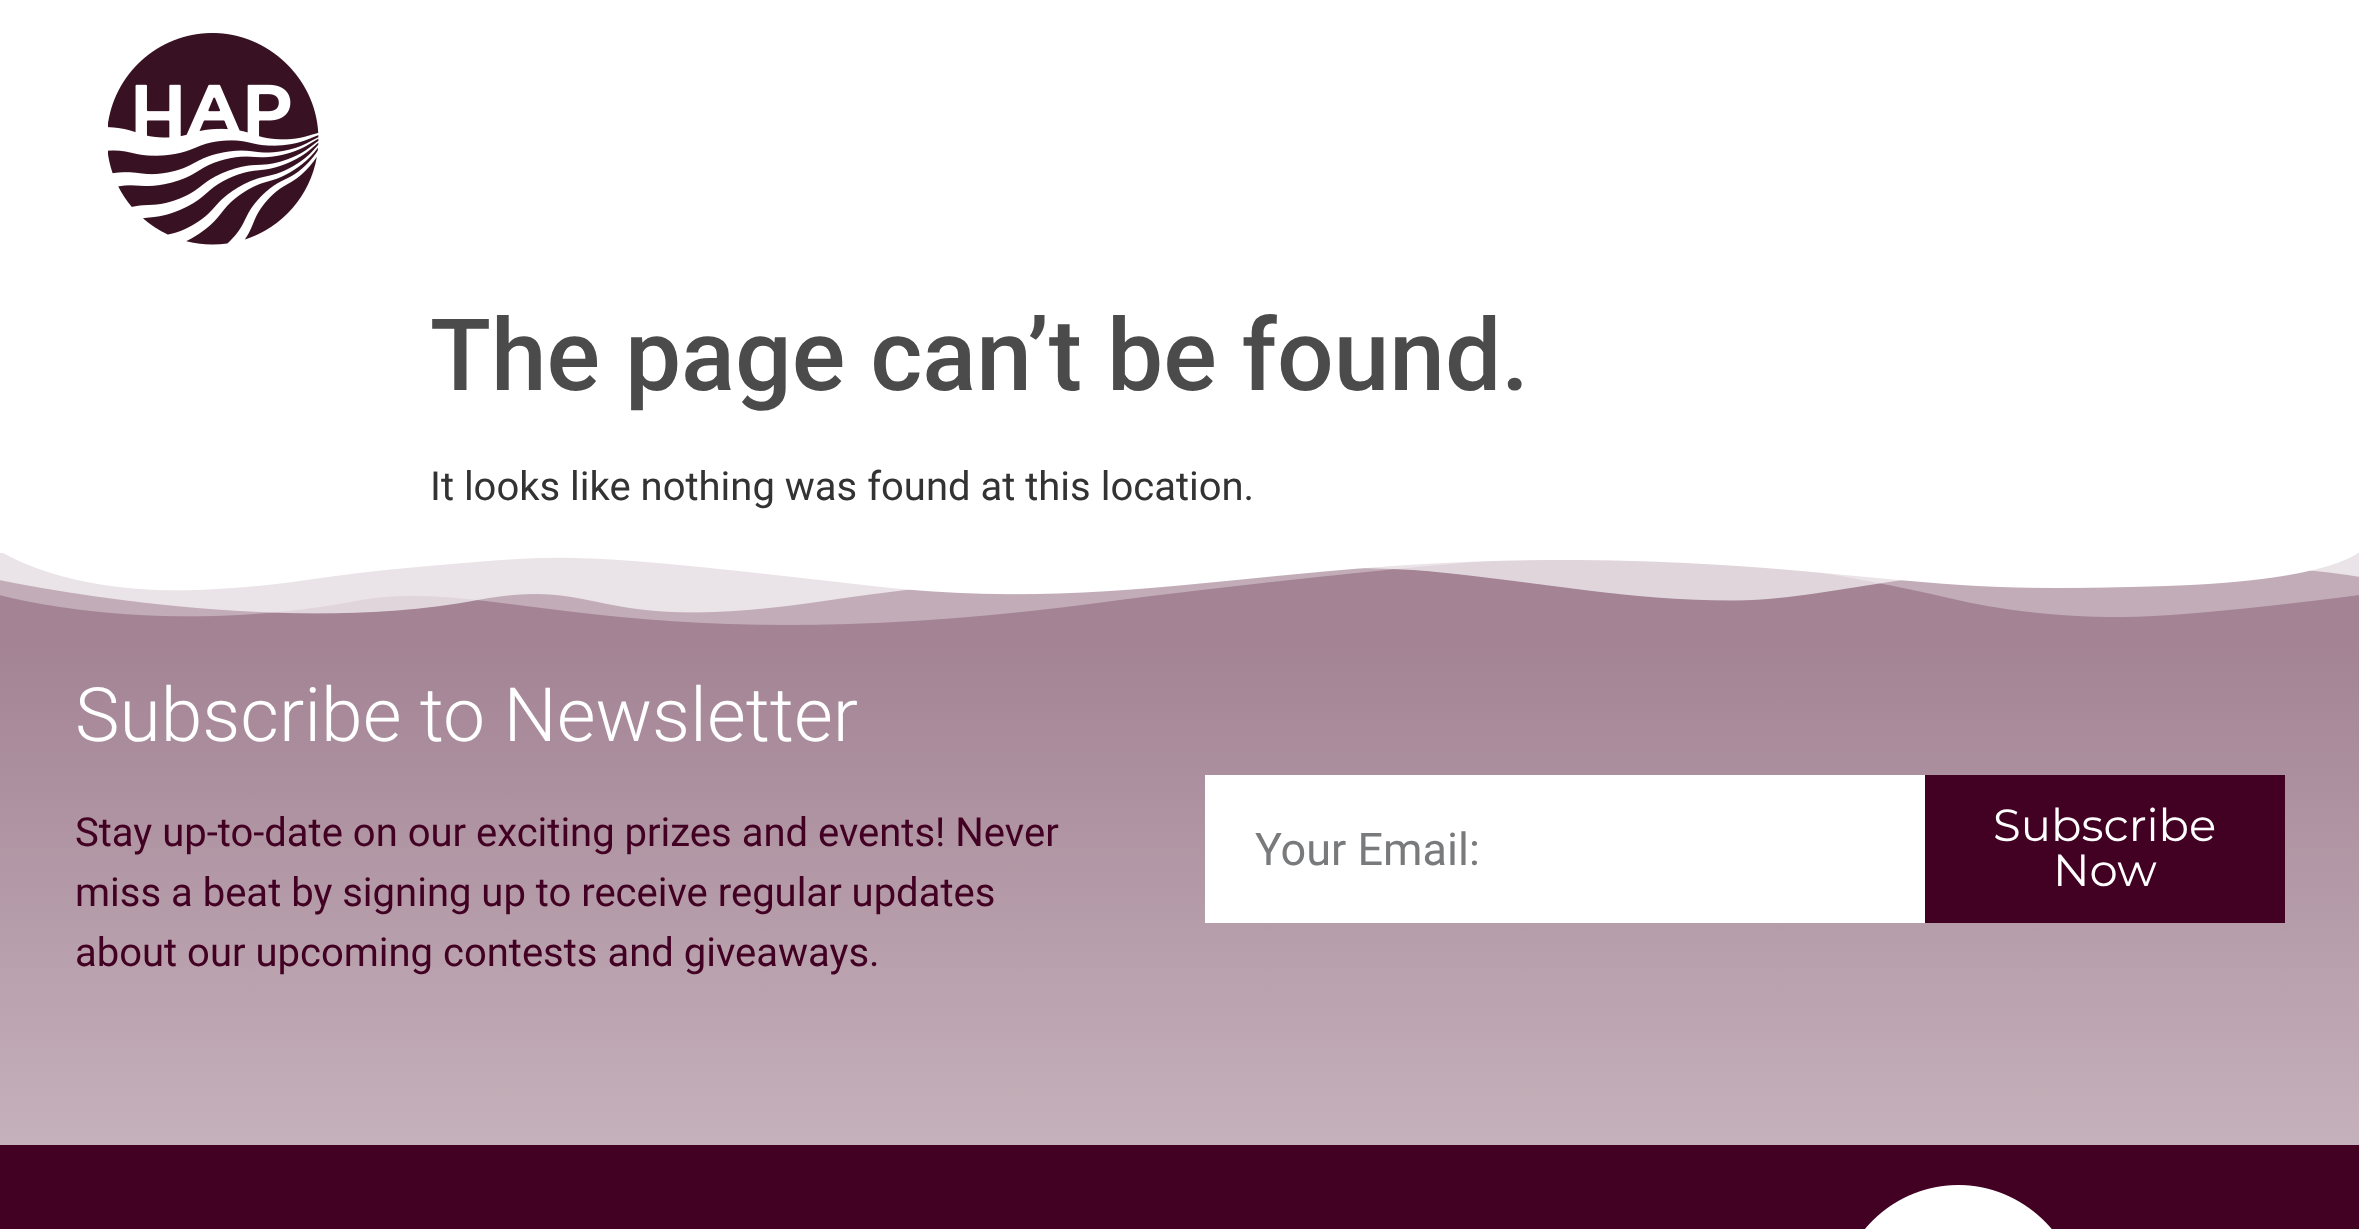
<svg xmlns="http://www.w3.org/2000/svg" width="2359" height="1229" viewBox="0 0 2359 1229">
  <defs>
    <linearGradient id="g1" gradientUnits="userSpaceOnUse" x1="1180" y1="552" x2="1180" y2="1145"><stop offset="0.15" stop-color="#a38394"/><stop offset="1" stop-color="#c5b1bb"/></linearGradient>
  </defs>
  <rect width="100%" height="100%" fill="#ffffff"/>
  <image x="108" y="33" width="211" height="212" href="img1.png"/>
  <text x="430" y="390" font-family="Roboto" font-size="100" font-weight="500" fill="#4b4b4b">The page can’t be found.</text>
  <text x="430" y="500" font-family="Roboto" font-size="40" fill="#333333">It looks like nothing was found at this location.</text>
  <rect x="0" y="553" width="2359" height="592" fill="url(#g1)"/>
  <image x="0" y="553" width="2359" height="72" href="img2.png"/>
  <text x="75" y="741" font-family="Roboto" font-size="75" font-weight="300" fill="#ffffff">Subscribe to Newsletter</text>
  <text x="75" y="846" font-family="Roboto" font-size="40" fill="#420023">Stay up-to-date on our exciting prizes and events! Never</text>
  <text x="75" y="906" font-family="Roboto" font-size="40" fill="#420023">miss a beat by signing up to receive regular updates</text>
  <text x="75" y="966" font-family="Roboto" font-size="40" fill="#420023">about our upcoming contests and giveaways.</text>
  <rect x="1205" y="775" width="720" height="148" fill="#ffffff"/>
  <text x="1255" y="865" font-family="Roboto" font-size="45" fill="#797a7c">Your Email:</text>
  <rect x="1925" y="775" width="360" height="148" fill="#420023"/>
  <text x="1993" y="841" font-family="Montserrat" font-size="45" fill="#ffffff">Subscribe</text>
  <text x="2053" y="886" font-family="Montserrat" font-size="45" fill="#ffffff">Now</text>
  <rect x="0" y="1145" width="2359" height="84" fill="#420023"/>
  <image x="1865" y="1185" width="187" height="44" href="img3.png"/>
</svg>
